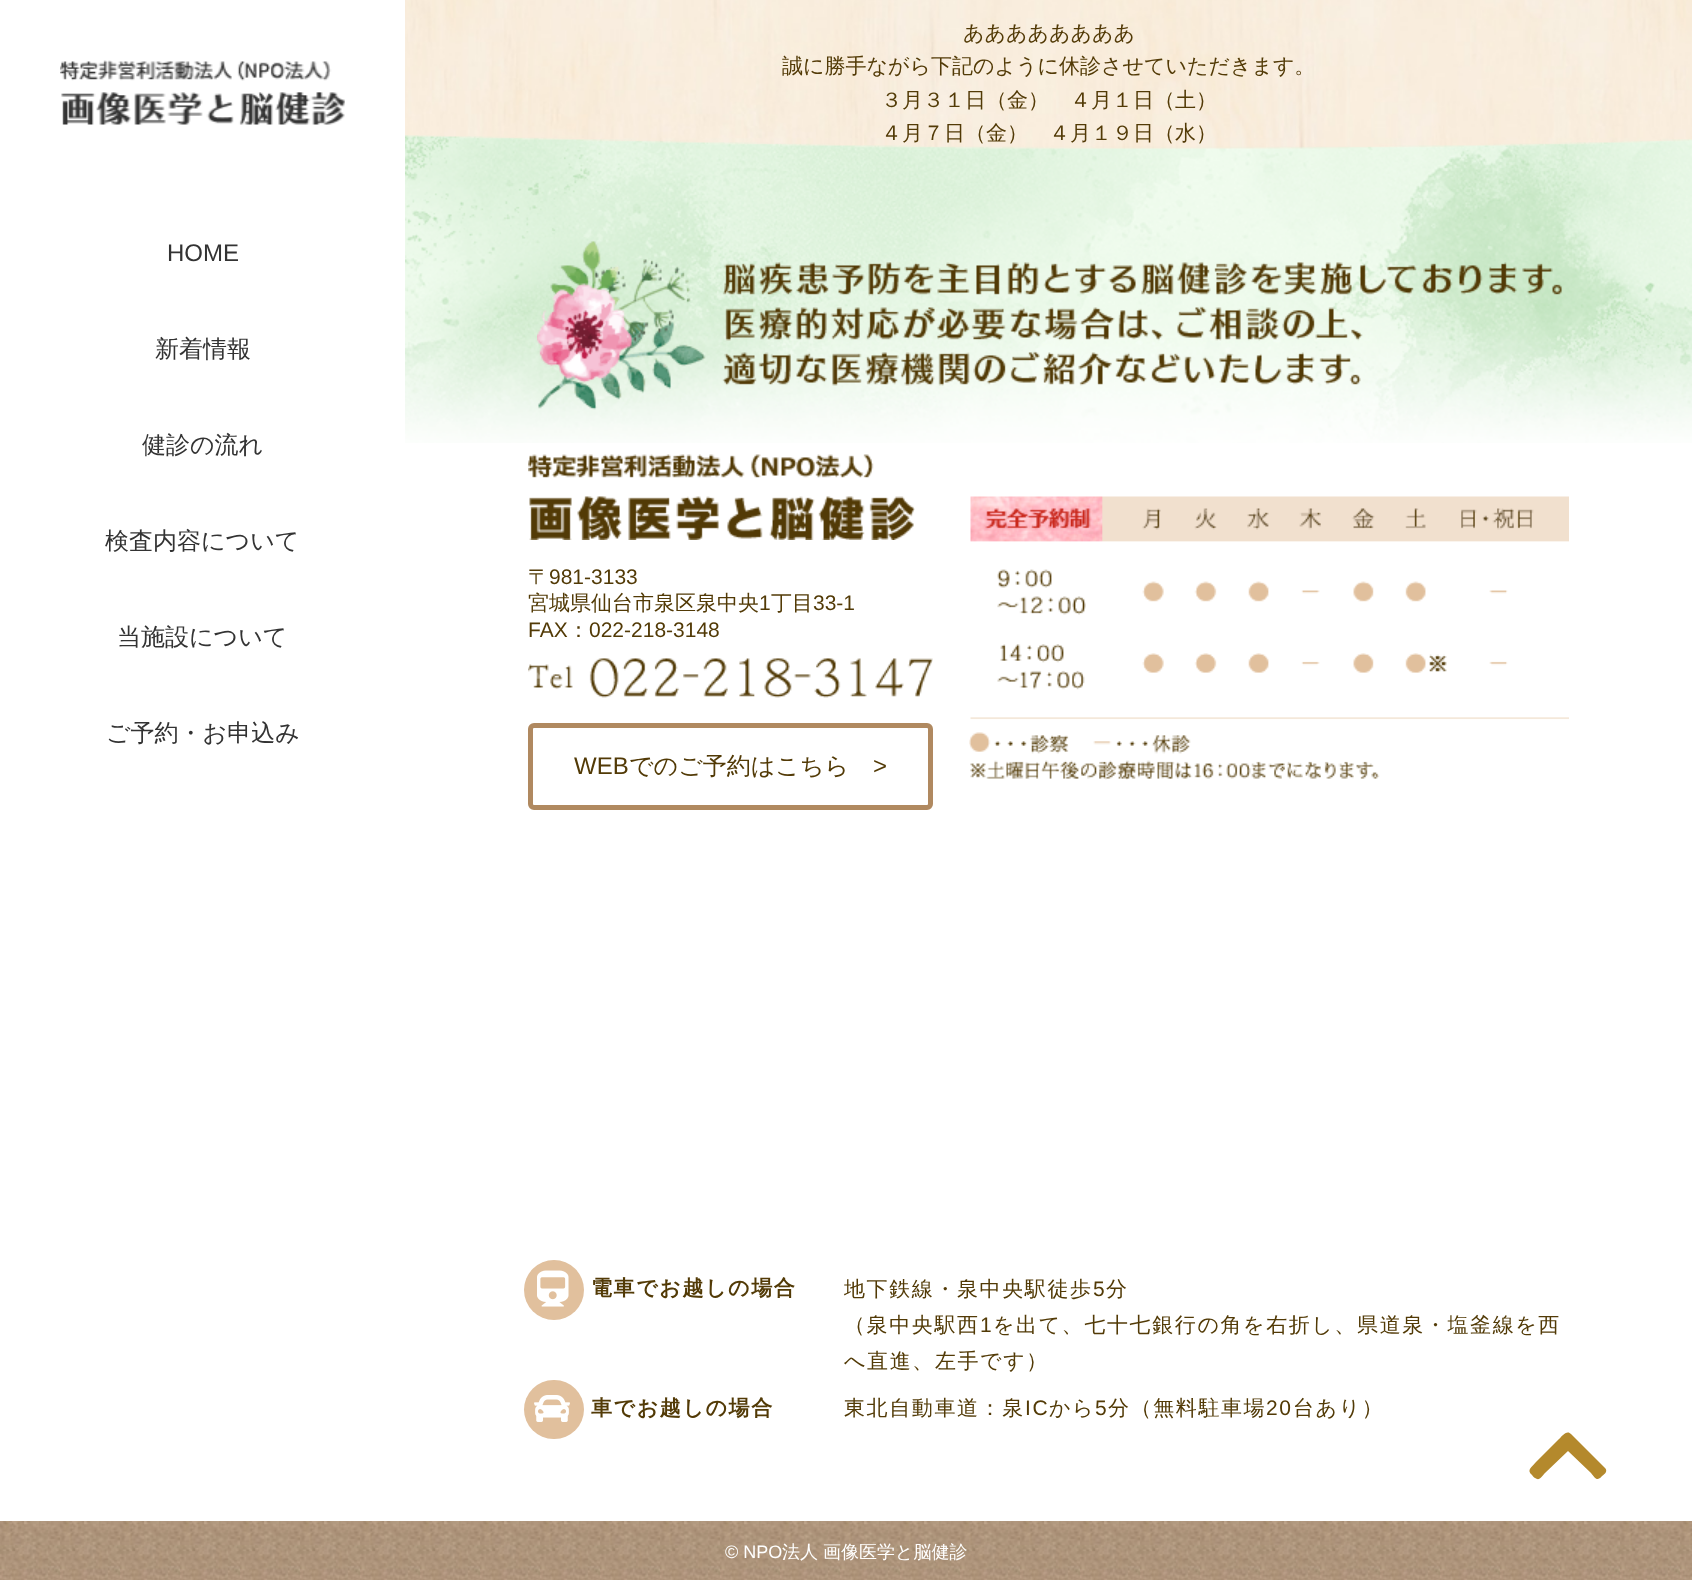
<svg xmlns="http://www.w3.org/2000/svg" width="1692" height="1580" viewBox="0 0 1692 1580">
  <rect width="100%" height="100%" fill="#ffffff"/>
  <image x="405" y="0" width="1287" height="149" href="img1.png"/>
  <image x="60" y="60" width="285" height="65" href="img2.png"/>
  <text x="167" y="261" font-family="Liberation Sans" font-size="24" fill="#333333">HOME</text>
  <text x="155" y="357" font-family="WenQuanYi Zen Hei" font-size="24" font-weight="500" fill="#333333">新着情報</text>
  <text x="142" y="453" font-family="WenQuanYi Zen Hei" font-size="24" font-weight="500" fill="#333333">健診の流れ</text>
  <text x="105" y="549" font-family="WenQuanYi Zen Hei" font-size="24" font-weight="500" fill="#333333">検査内容について</text>
  <text x="117" y="645" font-family="WenQuanYi Zen Hei" font-size="24" font-weight="500" fill="#333333">当施設について</text>
  <text x="106" y="741" font-family="WenQuanYi Zen Hei" font-size="24" font-weight="500" fill="#333333">ご予約・お申込み</text>
  <text x="963" y="40" font-family="WenQuanYi Zen Hei" font-size="21" font-weight="500" fill="#523a06">ああああああああ</text>
  <text x="782" y="73" font-family="WenQuanYi Zen Hei" font-size="21" font-weight="500" fill="#523a06">誠に勝手ながら下記のように休診させていただきます。</text>
  <text x="881" y="107" font-family="WenQuanYi Zen Hei" font-size="21" font-weight="500" fill="#523a06">３月３１日（金）　４月１日（土）</text>
  <text x="881" y="140" font-family="WenQuanYi Zen Hei" font-size="21" font-weight="500" fill="#523a06">４月７日（金）　４月１９日（水）</text>
  <image x="405" y="135" width="1287" height="308" href="img3.png"/>
  <image x="537" y="241" width="1025" height="169" href="img4.png"/>
  <image x="528" y="454" width="387" height="86" href="img5.png"/>
  <text x="528" y="584" font-family="WenQuanYi Zen Hei" font-size="21" font-weight="500" fill="#523a06">〒</text>
  <text x="549" y="584" font-family="Liberation Sans" font-size="21" fill="#523a06">981-3133</text>
  <text x="528" y="610" font-family="WenQuanYi Zen Hei" font-size="21" font-weight="500" fill="#523a06">宮城県仙台市泉区泉中央</text>
  <text x="759" y="610" font-family="Liberation Sans" font-size="21" fill="#523a06">1</text>
  <text x="771" y="610" font-family="WenQuanYi Zen Hei" font-size="21" font-weight="500" fill="#523a06">丁目</text>
  <text x="813" y="610" font-family="Liberation Sans" font-size="21" fill="#523a06">33-1</text>
  <text x="528" y="637" font-family="Liberation Sans" font-size="21" fill="#523a06">FAX</text>
  <text x="568" y="637" font-family="WenQuanYi Zen Hei" font-size="21" font-weight="500" fill="#523a06">：</text>
  <text x="589" y="637" font-family="Liberation Sans" font-size="21" fill="#523a06">022-218-3148</text>
  <image x="528" y="658" width="405" height="40" href="img6.png"/>
  <rect x="530.5" y="725.5" width="400" height="82" rx="3.5" fill="none" stroke="#b08960" stroke-width="5"/>
  <text x="574" y="774" font-family="Liberation Sans" font-size="24" fill="#523a06">WEB</text>
  <text x="629" y="774" font-family="WenQuanYi Zen Hei" font-size="24" font-weight="500" fill="#523a06">でのご予約はこちら</text>
  <text x="873" y="774" font-family="Liberation Sans" font-size="24" fill="#523a06">&gt;</text>
  <image x="969" y="496" width="600" height="284" href="img7.png"/>
  <circle cx="554" cy="1290" r="30" fill="#e1c09d"/>
  <image x="537" y="1270" width="32" height="37" href="img8.png"/>
  <text x="591" y="1295" font-family="WenQuanYi Zen Hei" font-size="21" font-weight="bold" letter-spacing="1.6" fill="#523a06">電車でお越しの場合</text>
  <text x="844" y="1296" font-family="WenQuanYi Zen Hei" font-size="21" font-weight="500" letter-spacing="1.6" fill="#523a06">地下鉄線・泉中央駅徒歩</text>
  <text x="1093" y="1296" font-family="Liberation Sans" font-size="21" letter-spacing="1.6" fill="#523a06">5</text>
  <text x="1106" y="1296" font-family="WenQuanYi Zen Hei" font-size="21" font-weight="500" letter-spacing="1.6" fill="#523a06">分</text>
  <text x="844" y="1332" font-family="WenQuanYi Zen Hei" font-size="21" font-weight="500" letter-spacing="1.6" fill="#523a06">（泉中央駅西</text>
  <text x="980" y="1332" font-family="Liberation Sans" font-size="21" letter-spacing="1.6" fill="#523a06">1</text>
  <text x="993" y="1332" font-family="WenQuanYi Zen Hei" font-size="21" font-weight="500" letter-spacing="1.6" fill="#523a06">を出て、七十七銀行の角を右折し、県道泉・塩釜線を西</text>
  <text x="844" y="1368" font-family="WenQuanYi Zen Hei" font-size="21" font-weight="500" letter-spacing="1.6" fill="#523a06">へ直進、左手です）</text>
  <rect x="524" y="1380" width="60" height="59" rx="29.5" fill="#e1c09d"/>
  <image x="534" y="1395" width="36" height="27" href="img9.png"/>
  <text x="591" y="1415" font-family="WenQuanYi Zen Hei" font-size="21" font-weight="bold" letter-spacing="1.6" fill="#523a06">車でお越しの場合</text>
  <text x="844" y="1415" font-family="WenQuanYi Zen Hei" font-size="21" font-weight="500" letter-spacing="1.6" fill="#523a06">東北自動車道：泉</text>
  <text x="1025" y="1415" font-family="Liberation Sans" font-size="21" letter-spacing="1.6" fill="#523a06">IC</text>
  <text x="1049" y="1415" font-family="WenQuanYi Zen Hei" font-size="21" font-weight="500" letter-spacing="1.6" fill="#523a06">から</text>
  <text x="1095" y="1415" font-family="Liberation Sans" font-size="21" letter-spacing="1.6" fill="#523a06">5</text>
  <text x="1108" y="1415" font-family="WenQuanYi Zen Hei" font-size="21" font-weight="500" letter-spacing="1.6" fill="#523a06">分（無料駐車場</text>
  <text x="1266" y="1415" font-family="Liberation Sans" font-size="21" letter-spacing="1.6" fill="#523a06">20</text>
  <text x="1293" y="1415" font-family="WenQuanYi Zen Hei" font-size="21" font-weight="500" letter-spacing="1.6" fill="#523a06">台あり）</text>
  <path d="M1571 1434L1605 1468C1608 1471 1605 1474 1602 1476C1597 1482 1595 1478 1591 1473L1568 1451L1545 1473C1543 1475 1540 1480 1537 1479C1535 1478 1533 1477 1532 1475C1526 1470 1532 1467 1536 1462L1559 1439C1561 1437 1567 1429 1571 1434Z" fill="#b4892c"/>
  <image x="0" y="1521" width="1692" height="59" href="img10.png"/>
  <text x="725" y="1558" font-family="Liberation Sans" font-size="18" fill="#ffffff">© NPO</text>
  <text x="782" y="1558" font-family="WenQuanYi Zen Hei" font-size="18" font-weight="500" fill="#ffffff">法人</text>
  <text x="823" y="1558" font-family="WenQuanYi Zen Hei" font-size="18" font-weight="500" fill="#ffffff">画像医学と脳健診</text>
</svg>
